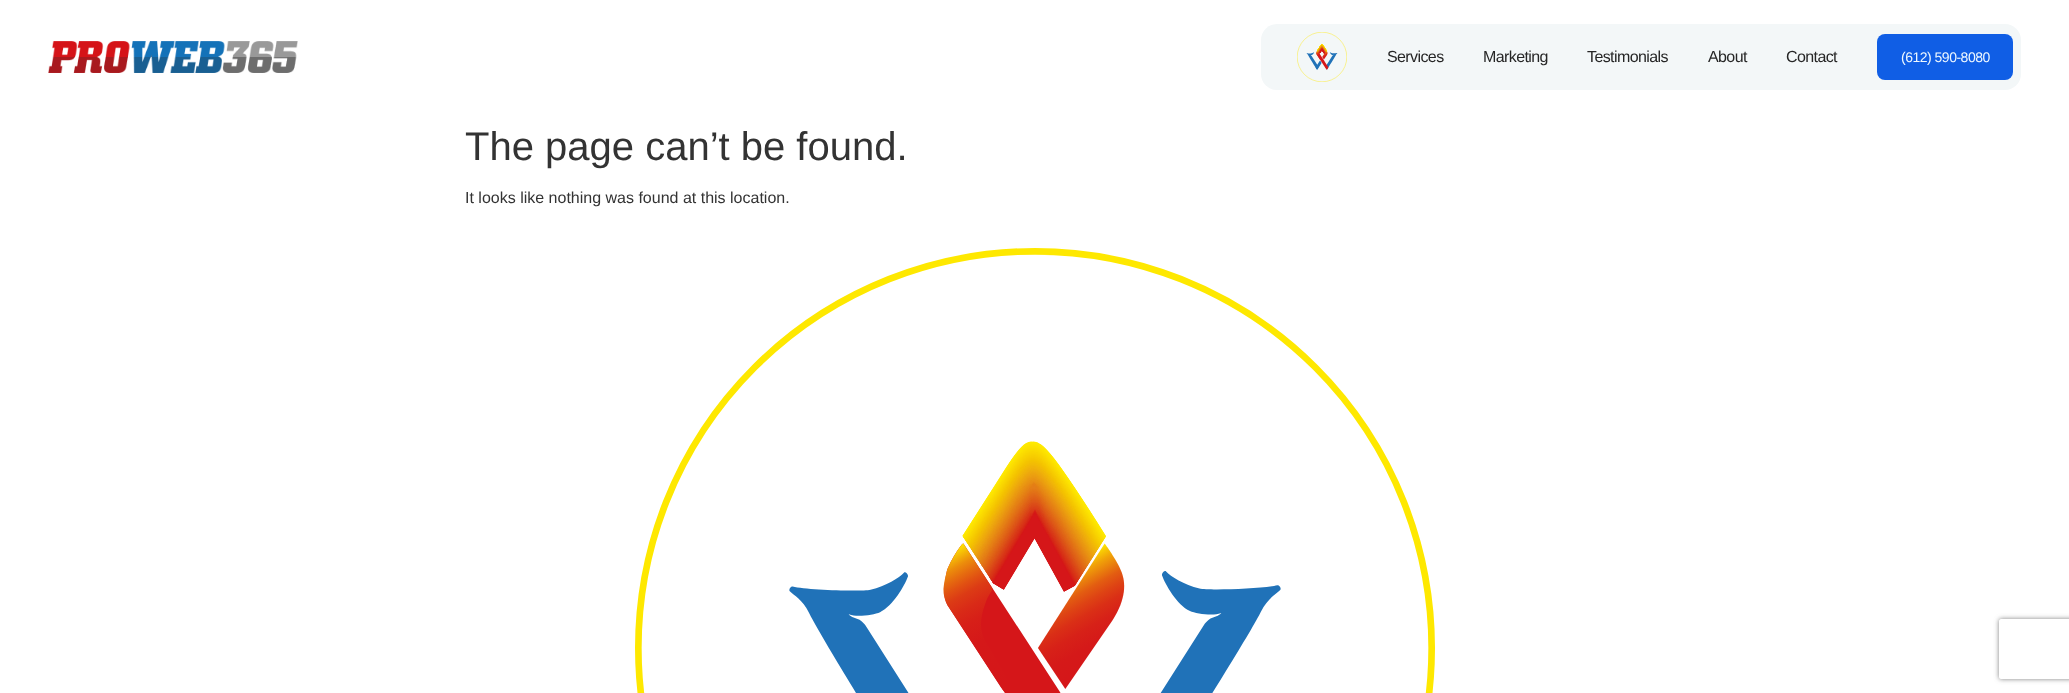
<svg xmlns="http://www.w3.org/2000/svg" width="2069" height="693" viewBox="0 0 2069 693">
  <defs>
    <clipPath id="clip1"><path d="M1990 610H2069V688H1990ZM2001 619H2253C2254 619 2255 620 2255 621V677C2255 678 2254 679 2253 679H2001C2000 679 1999 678 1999 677V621C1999 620 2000 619 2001 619Z" clip-rule="evenodd"/></clipPath>
    <filter id="blur1" x="-50%" y="-200%" width="200%" height="500%"><feGaussianBlur stdDeviation="2.5"/></filter>
  </defs>
  <rect width="100%" height="100%" fill="#ffffff"/>
  <image x="48" y="41" width="250" height="32" href="img1.png"/>
  <rect x="1261" y="24" width="760" height="66" rx="16" fill="#f3f7f8"/>
  <image x="1297" y="32" width="50" height="50" href="img2.png"/>
  <text x="1387" y="62" font-family="Liberation Sans" font-size="16" letter-spacing="-0.6" fill="#262626">Services</text>
  <text x="1483" y="62" font-family="Liberation Sans" font-size="16" letter-spacing="-0.6" fill="#262626">Marketing</text>
  <text x="1587" y="62" font-family="Liberation Sans" font-size="16" letter-spacing="-0.6" fill="#262626">Testimonials</text>
  <text x="1708" y="62" font-family="Liberation Sans" font-size="16" letter-spacing="-0.6" fill="#262626">About</text>
  <text x="1786" y="62" font-family="Liberation Sans" font-size="16" letter-spacing="-0.6" fill="#262626">Contact</text>
  <rect x="1877" y="34" width="136" height="46" rx="8" fill="#105ee5"/>
  <text x="1901" y="62" font-family="Liberation Sans" font-size="14" letter-spacing="-0.5" fill="#eef8ff">(612) 590-8080</text>
  <text x="465" y="160" font-family="Liberation Sans" font-size="40" fill="#333333">The page can’t be found.</text>
  <text x="465" y="203" font-family="Liberation Sans" font-size="16" fill="#333333">It looks like nothing was found at this location.</text>
  <image x="635" y="248" width="800" height="445" href="img3.png"/>
  <g clip-path="url(#clip1)">
    <rect x="1999" y="619" width="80" height="60" rx="2" fill="#808080" filter="url(#blur1)"/>
  </g>
</svg>
